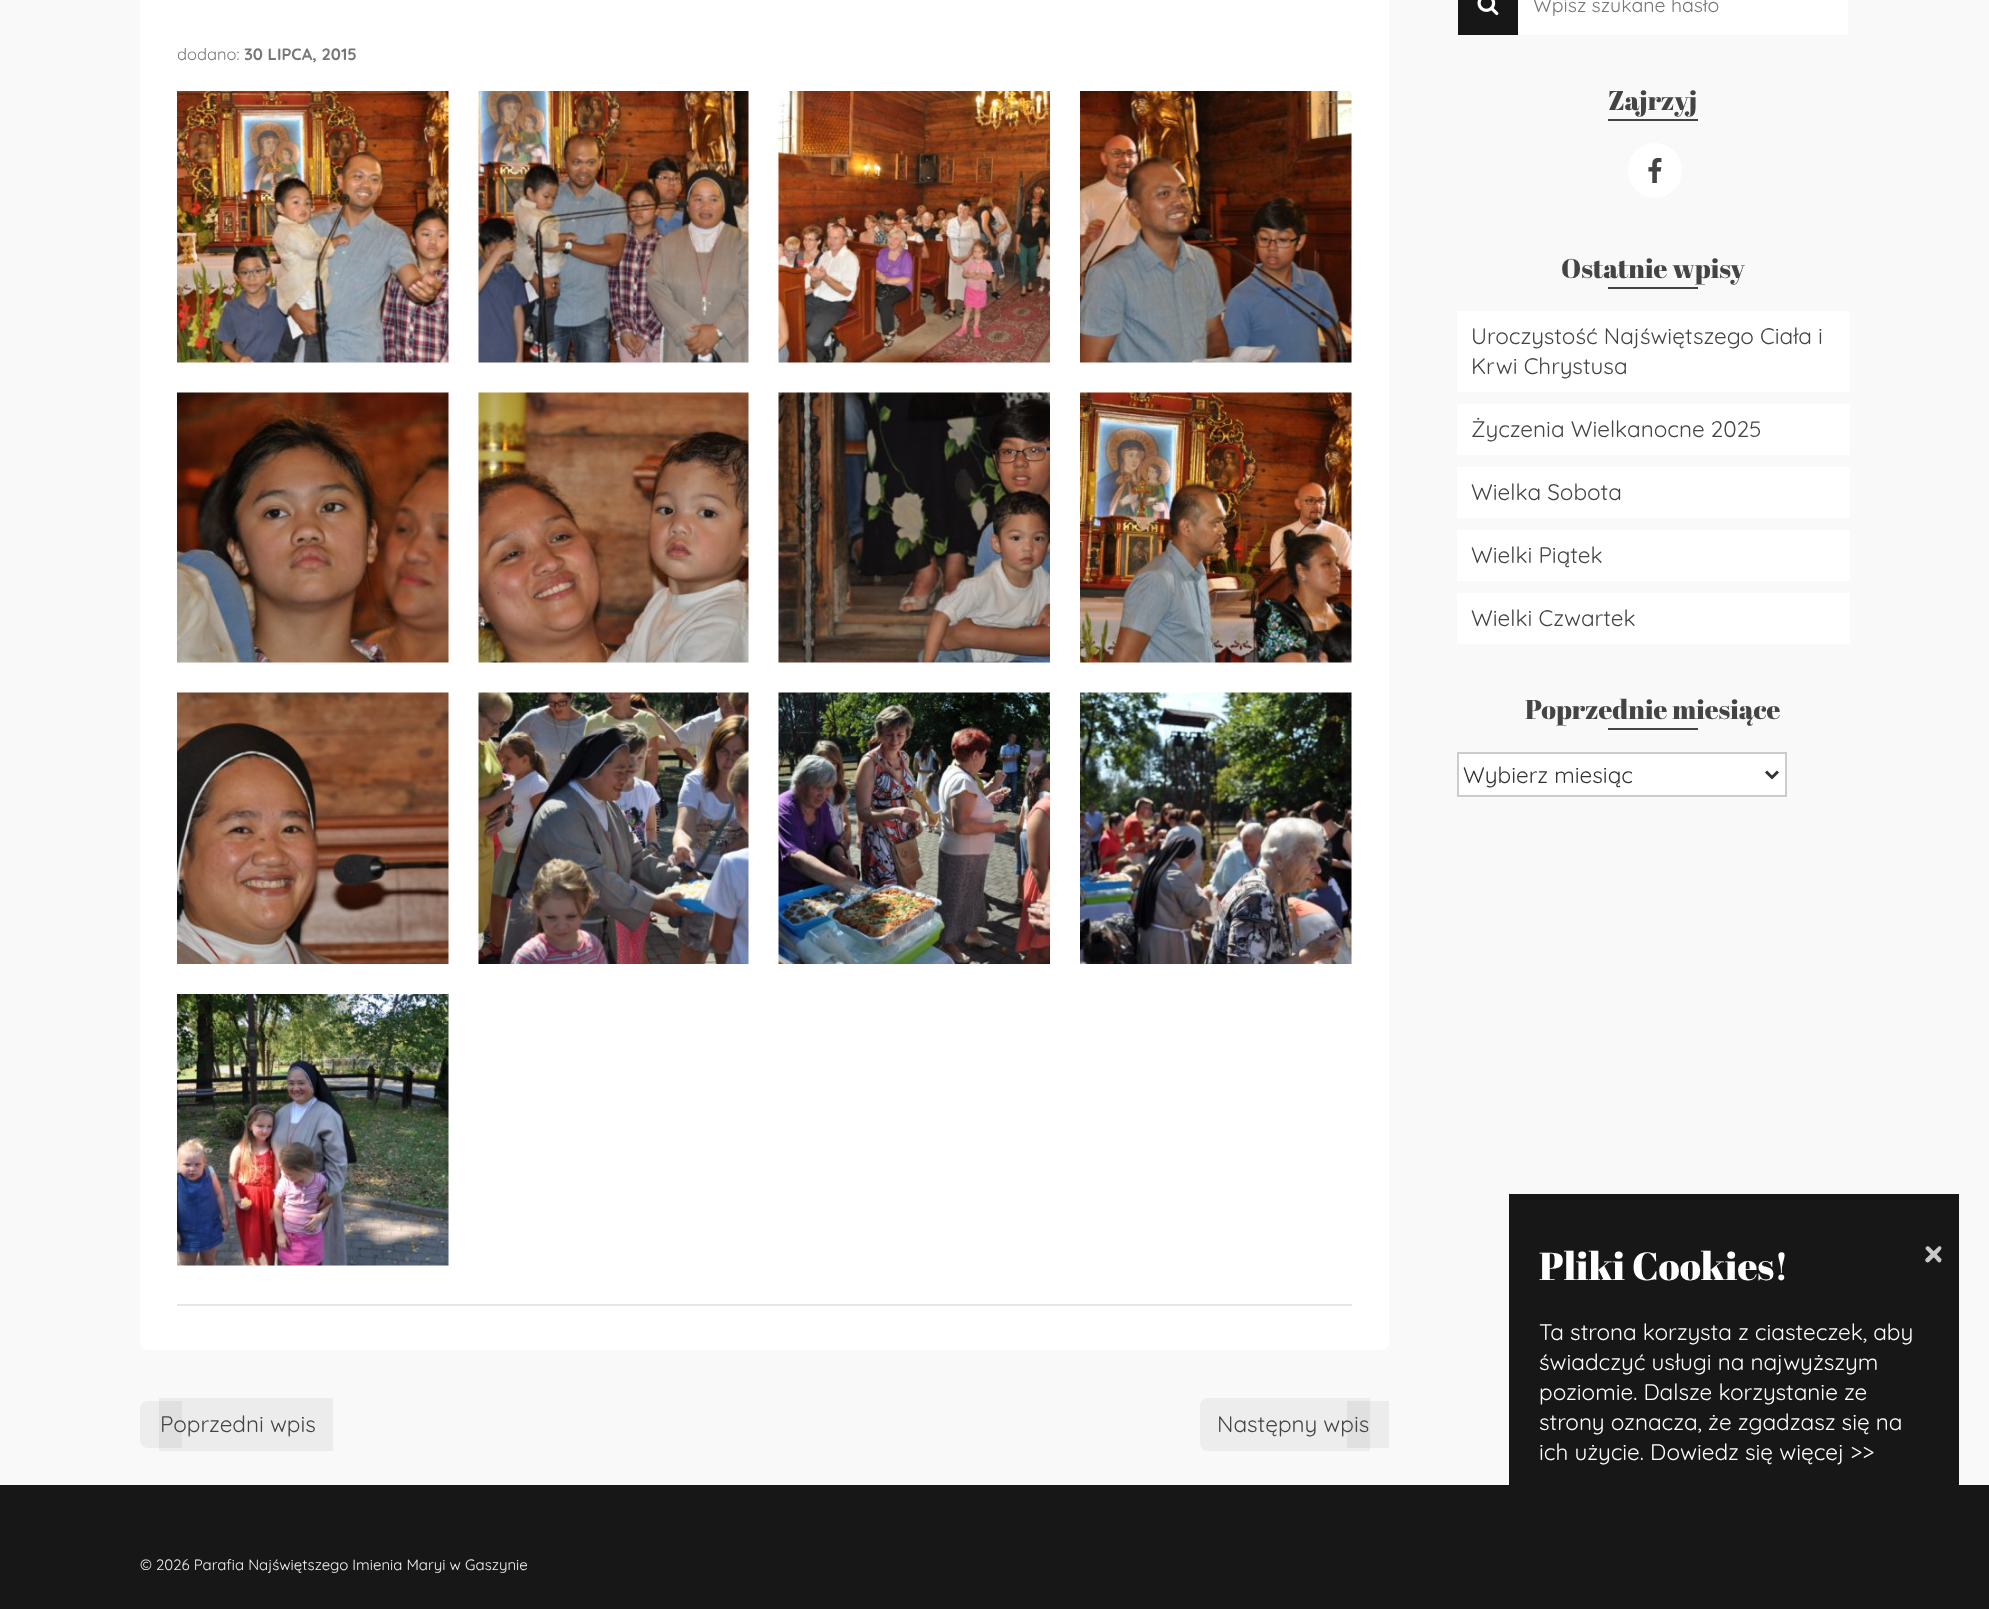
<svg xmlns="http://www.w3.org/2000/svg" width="1989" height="1609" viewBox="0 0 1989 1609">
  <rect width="100%" height="100%" fill="#f9f9f9"/>
  <path d="M140-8H1389V1342C1389 1346.5 1385.5 1350 1381 1350H148C143.5 1350 140 1346.5 140 1342Z" fill="#ffffff"/>
  <text x="177" y="60" font-family="Quicksand" font-size="16.5" fill="#777777">dodano:</text>
  <text x="244" y="60" font-family="Quicksand" font-size="16.5" font-weight="bold" fill="#777777">30 LIPCA, 2015</text>
  <image x="177" y="91" width="272" height="272" href="img1.png"/>
  <image x="478" y="91" width="271" height="272" href="img2.png"/>
  <image x="778" y="91" width="272" height="272" href="img3.png"/>
  <image x="1080" y="91" width="272" height="272" href="img4.png"/>
  <image x="177" y="392" width="272" height="271" href="img5.png"/>
  <image x="478" y="392" width="271" height="271" href="img6.png"/>
  <image x="778" y="392" width="272" height="271" href="img7.png"/>
  <image x="1080" y="392" width="272" height="271" href="img8.png"/>
  <image x="177" y="692" width="272" height="272" href="img9.png"/>
  <image x="478" y="692" width="271" height="272" href="img10.png"/>
  <image x="778" y="692" width="272" height="272" href="img11.png"/>
  <image x="1080" y="692" width="272" height="272" href="img12.png"/>
  <image x="177" y="994" width="272" height="272" href="img13.png"/>
  <rect x="177" y="1304" width="1175" height="2" fill="#e6e6e6"/>
  <path d="M148 1401H182V1448H148C143.5 1448 140 1444.5 140 1440V1409C140 1404.5 143.5 1401 148 1401Z" fill="#ededed"/>
  <rect x="159" y="1398" width="174" height="53" fill="#000000" fill-opacity="0.05"/>
  <text x="160" y="1432" font-family="Quicksand" font-size="22.5" fill="#444444">Poprzedni wpis</text>
  <path d="M1208 1398H1370V1451H1208C1203.5 1451 1200 1447.5 1200 1443V1406C1200 1401.5 1203.5 1398 1208 1398Z" fill="#ededed"/>
  <rect x="1347" y="1401" width="42" height="47" fill="#000000" fill-opacity="0.05"/>
  <text x="1217" y="1432" font-family="Quicksand" font-size="22.5" fill="#444444">Następny wpis</text>
  <rect x="1458" y="0" width="60" height="35" fill="#171717"/>
  <image x="1477" y="0" width="22" height="16" href="img14.png"/>
  <rect x="1518" y="0" width="330" height="35" fill="#ffffff"/>
  <text x="1533" y="12" font-family="Quicksand" font-size="19.5" fill="#777777">Wpisz szukane hasło</text>
  <text x="1608" y="110" font-family="Abril Fatface" font-size="27" fill="#444444">Zajrzyj</text>
  <rect x="1608" y="119" width="90" height="2" fill="#444444"/>
  <rect x="1628" y="143" width="54" height="55" rx="27" fill="#ffffff"/>
  <image x="1648" y="157" width="14" height="26" href="img15.png"/>
  <text x="1561" y="278" font-family="Abril Fatface" font-size="27" fill="#444444">Ostatnie wpisy</text>
  <rect x="1608" y="287" width="90" height="2" fill="#444444"/>
  <rect x="1457" y="311" width="393" height="81" fill="#ffffff"/>
  <text x="1471" y="344" font-family="Quicksand" font-size="22.5" fill="#444444">Uroczystość Najświętszego Ciała i</text>
  <text x="1471" y="374" font-family="Quicksand" font-size="22.5" fill="#444444">Krwi Chrystusa</text>
  <rect x="1457" y="404" width="393" height="51" fill="#ffffff"/>
  <text x="1471" y="437" font-family="Quicksand" font-size="22.5" fill="#444444">Życzenia Wielkanocne 2025</text>
  <rect x="1457" y="467" width="393" height="51" fill="#ffffff"/>
  <text x="1471" y="500" font-family="Quicksand" font-size="22.5" fill="#444444">Wielka Sobota</text>
  <rect x="1457" y="530" width="393" height="51" fill="#ffffff"/>
  <text x="1471" y="563" font-family="Quicksand" font-size="22.5" fill="#444444">Wielki Piątek</text>
  <rect x="1457" y="593" width="393" height="51" fill="#ffffff"/>
  <text x="1471" y="626" font-family="Quicksand" font-size="22.5" fill="#444444">Wielki Czwartek</text>
  <text x="1525" y="719" font-family="Abril Fatface" font-size="27" fill="#444444">Poprzednie miesiące</text>
  <rect x="1608" y="728" width="90" height="2" fill="#444444"/>
  <rect x="1458" y="753" width="328" height="43" fill="#ffffff" stroke="#cccccc" stroke-width="2"/>
  <path d="M1766 771.5L1772 777.5L1778 771.5" fill="none" stroke="#333333" stroke-width="3"/>
  <text x="1463" y="783" font-family="Quicksand" font-size="22.5" fill="#333333">Wybierz miesiąc</text>
  <rect x="1509" y="1194" width="450" height="291" fill="#171717"/>
  <text x="1539" y="1280" font-family="Abril Fatface" font-size="39" fill="#ffffff">Pliki Cookies!</text>
  <path d="M1929.5 1247L1941.5 1259C1941.5 1260 1941.5 1260.5 1941 1261.5C1939.5 1264 1937 1261 1936 1259.5L1926 1249.5C1924.5 1247.5 1927.5 1245 1929.5 1247Z" fill="#c9c9c9"/>
  <path d="M1926 1258.5L1938.5 1246.5C1939 1246 1940 1246 1940.5 1246.5C1943 1248 1940 1250.5 1939 1252L1929 1262C1926.5 1263.5 1924 1260.5 1926 1258.5Z" fill="#c9c9c9"/>
  <text x="1539" y="1340" font-family="Quicksand" font-size="22.5" fill="#ffffff">Ta strona korzysta z ciasteczek, aby</text>
  <text x="1539" y="1370" font-family="Quicksand" font-size="22.5" fill="#ffffff">świadczyć usługi na najwyższym</text>
  <text x="1539" y="1400" font-family="Quicksand" font-size="22.5" fill="#ffffff">poziomie. Dalsze korzystanie ze</text>
  <text x="1539" y="1430" font-family="Quicksand" font-size="22.5" fill="#ffffff">strony oznacza, że zgadzasz się na</text>
  <text x="1539" y="1460" font-family="Quicksand" font-size="22.5" fill="#ffffff">ich użycie. Dowiedz się więcej &gt;&gt;</text>
  <rect x="0" y="1485" width="1989" height="124" fill="#171717"/>
  <text x="140" y="1570" font-family="Quicksand" font-size="15" fill="#f2f2f2">© 2026 Parafia Najświętszego Imienia Maryi w Gaszynie</text>
</svg>
